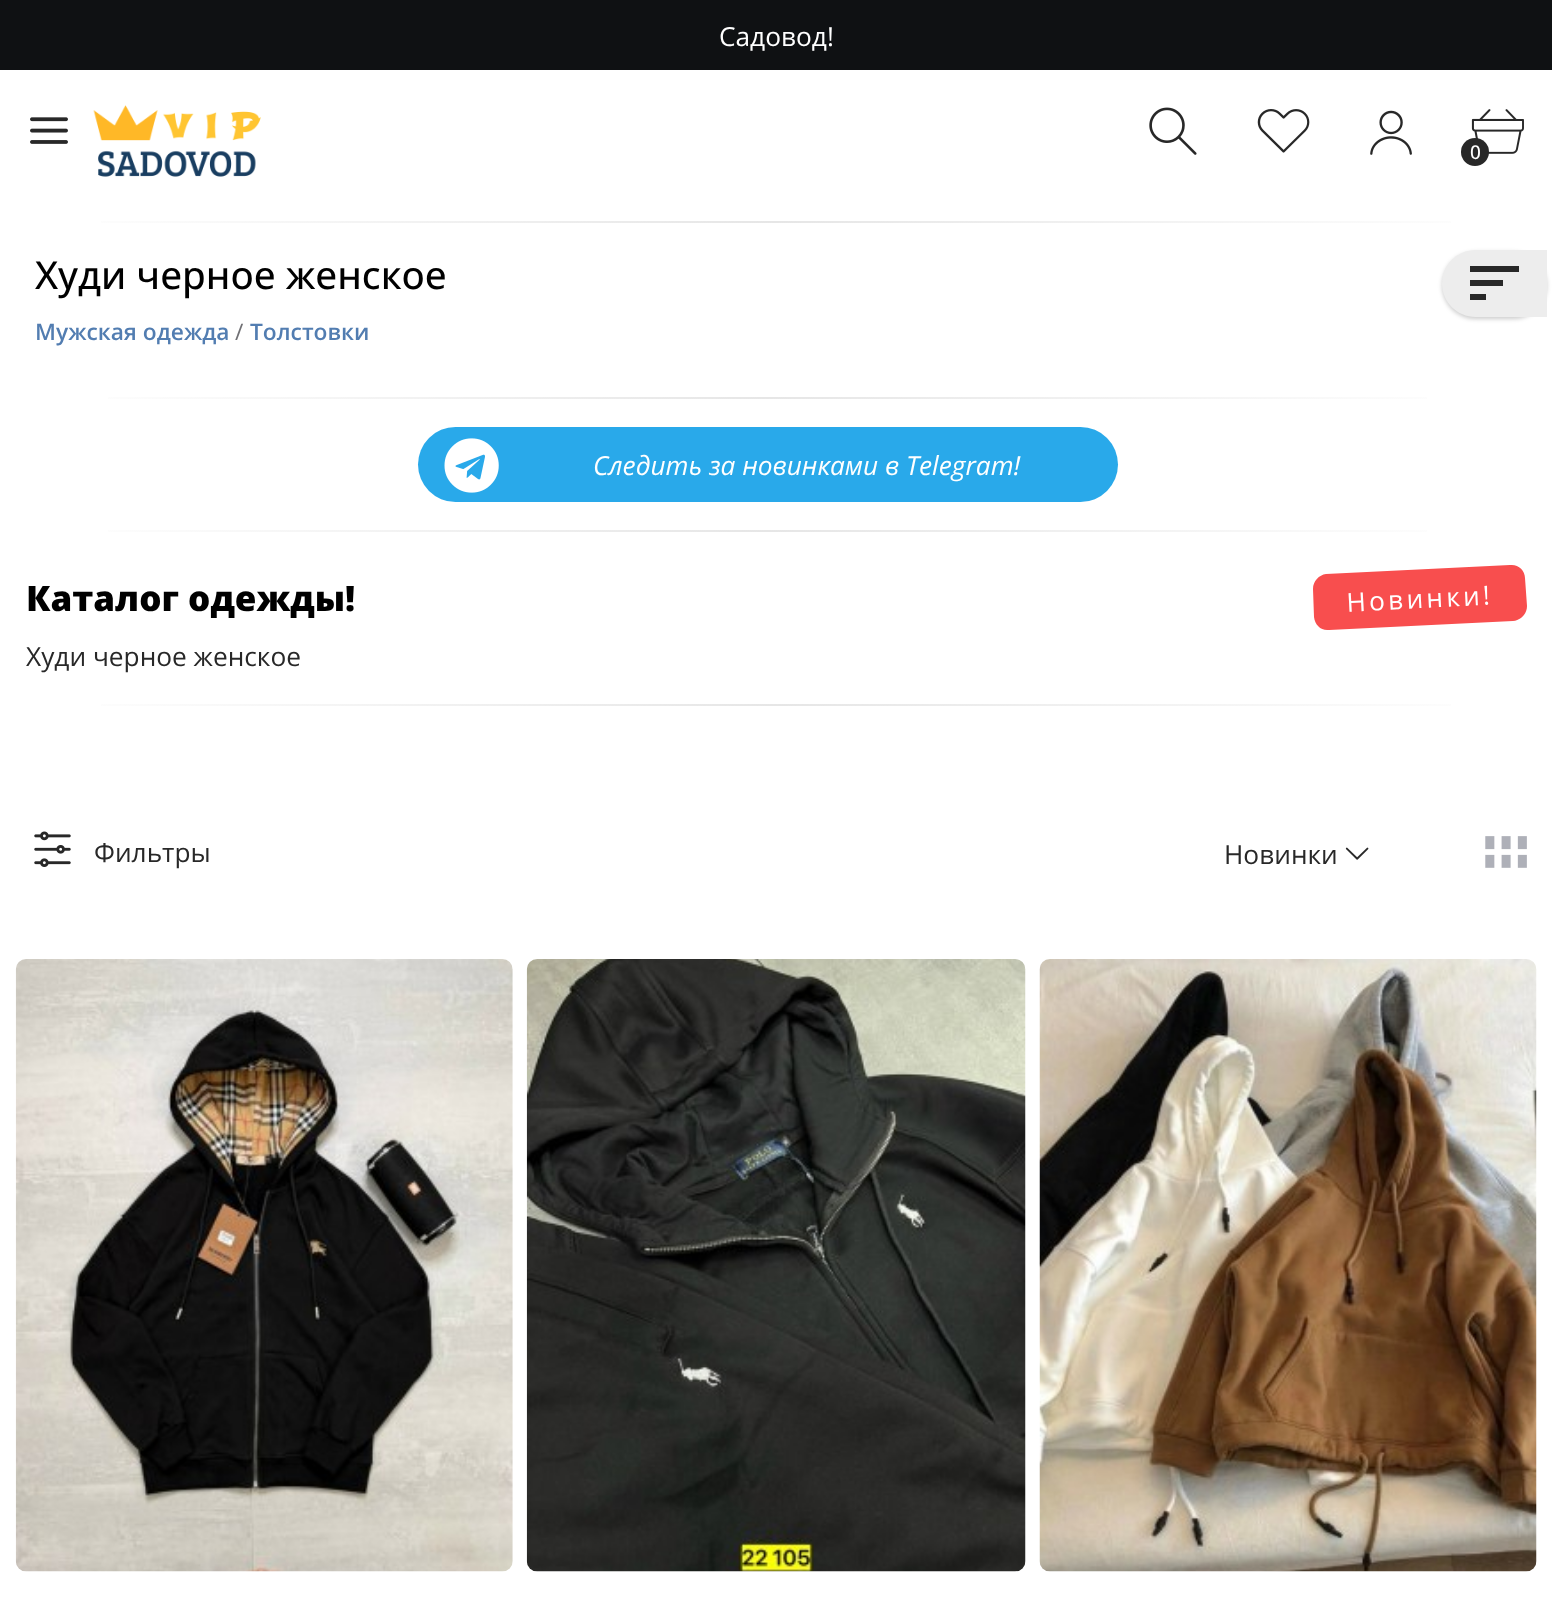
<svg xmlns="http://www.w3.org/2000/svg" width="1552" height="1599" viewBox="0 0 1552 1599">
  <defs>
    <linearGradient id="g1" gradientUnits="userSpaceOnUse" x1="26" y1="221" x2="1526" y2="221"><stop offset="0" stop-color="#ffffff"/><stop offset="0.5" stop-color="#e6e6e6"/><stop offset="1" stop-color="#ffffff"/></linearGradient>
    <filter id="blur1" x="-50%" y="-200%" width="200%" height="500%"><feGaussianBlur stdDeviation="2"/></filter>
    <linearGradient id="g2" gradientUnits="userSpaceOnUse" x1="35" y1="398" x2="1500" y2="398"><stop offset="0" stop-color="#ffffff"/><stop offset="0.5" stop-color="#e6e6e6"/><stop offset="1" stop-color="#ffffff"/></linearGradient>
    <linearGradient id="g3" gradientUnits="userSpaceOnUse" x1="35" y1="531" x2="1500" y2="531"><stop offset="0" stop-color="#ffffff"/><stop offset="0.5" stop-color="#e6e6e6"/><stop offset="1" stop-color="#ffffff"/></linearGradient>
    <linearGradient id="g4" gradientUnits="userSpaceOnUse" x1="26" y1="704" x2="1526" y2="704"><stop offset="0" stop-color="#ffffff"/><stop offset="0.5" stop-color="#e6e6e6"/><stop offset="1" stop-color="#ffffff"/></linearGradient>
  </defs>
  <rect width="100%" height="100%" fill="#ffffff"/>
  <rect x="0" y="0" width="1552" height="70" fill="#0f1113"/>
  <text x="719" y="46" font-family="Open Sans" font-size="26.25" fill="#ffffff">Садовод!</text>
  <image x="30" y="117" width="38" height="27" href="img1.png"/>
  <image x="93" y="105" width="168" height="72" href="img2.png"/>
  <image x="1149" y="107" width="48" height="48" href="img3.png"/>
  <image x="1257" y="109" width="53" height="44" href="img4.png"/>
  <image x="1370" y="110" width="42" height="45" href="img5.png"/>
  <image x="1471" y="109" width="53" height="45" href="img6.png"/>
  <circle cx="1475" cy="152" r="14" fill="#282828"/>
  <text x="1470" y="159" font-family="Open Sans" font-size="19" font-weight="500" fill="#ffffff">0</text>
  <rect x="101" y="221" width="1350" height="2" fill="url(#g1)"/>
  <text x="35" y="289" font-family="Open Sans" font-size="38.5" font-weight="500" fill="#000000">Худи черное женское</text>
  <rect x="1442" y="252" width="105" height="67" rx="33.5" fill="#000000" fill-opacity="0.2" filter="url(#blur1)"/>
  <path d="M1475.5 250H1547V317H1475.5C1457 317 1442 302 1442 283.5C1442 265 1457 250 1475.5 250Z" fill="#ededed"/>
  <path d="M1470 286H1503V280H1470ZM1470 266V272H1519V266ZM1470 300H1486V294H1470Z" fill="#282828"/>
  <text x="35" y="340" font-family="Open Sans" font-size="22.75" font-weight="600" fill="#527db1">Мужская одежда</text>
  <text x="235" y="340" font-family="Open Sans" font-size="22.75" fill="#707074">/</text>
  <text x="250" y="340" font-family="Open Sans" font-size="22.75" font-weight="600" fill="#527db1">Толстовки</text>
  <rect x="108" y="397" width="1319" height="2" fill="url(#g2)"/>
  <rect x="418" y="427" width="700" height="75" rx="37.5" fill="#29a9ea"/>
  <image x="444" y="438" width="55" height="55" href="img7.png"/>
  <text x="593" y="475" font-family="Open Sans" font-size="26.25" font-style="italic" fill="#ffffff">Следить за новинками в Telegram!</text>
  <rect x="108" y="530" width="1319" height="2" fill="url(#g3)"/>
  <text x="26" y="611" font-family="Open Sans" font-size="35" font-weight="800" fill="#000000">Каталог одежды!</text>
  <path d="M1326 574L1510 565C1518 564 1525 570 1525 578L1527 606C1527 614 1521 620 1513 621L1329 630C1321 631 1315 625 1314 617L1313 589C1313 581 1319 575 1326 574Z" fill="#f84e4e"/>
  <text x="1347" y="612" transform="rotate(-3 1347 612)" font-family="Open Sans" font-size="26.25" letter-spacing="3.25" fill="#ffffff">Новинки!</text>
  <text x="26" y="666" font-family="Open Sans" font-size="26.25" fill="#282828">Худи черное женское</text>
  <rect x="101" y="704" width="1350" height="2" fill="url(#g4)"/>
  <image x="34" y="831" width="37" height="36" href="img8.png"/>
  <text x="94" y="862" font-family="Open Sans" font-size="26.25" fill="#282828">Фильтры</text>
  <text x="1224" y="864" font-family="Open Sans" font-size="26.25" fill="#282828">Новинки</text>
  <image x="1345" y="847" width="24" height="13" href="img9.png"/>
  <image x="1485" y="836" width="42" height="32" href="img10.png"/>
  <image x="15" y="959" width="498" height="613" href="img11.png"/>
  <image x="526" y="959" width="500" height="613" href="img12.png"/>
  <image x="1039" y="959" width="498" height="613" href="img13.png"/>
</svg>
